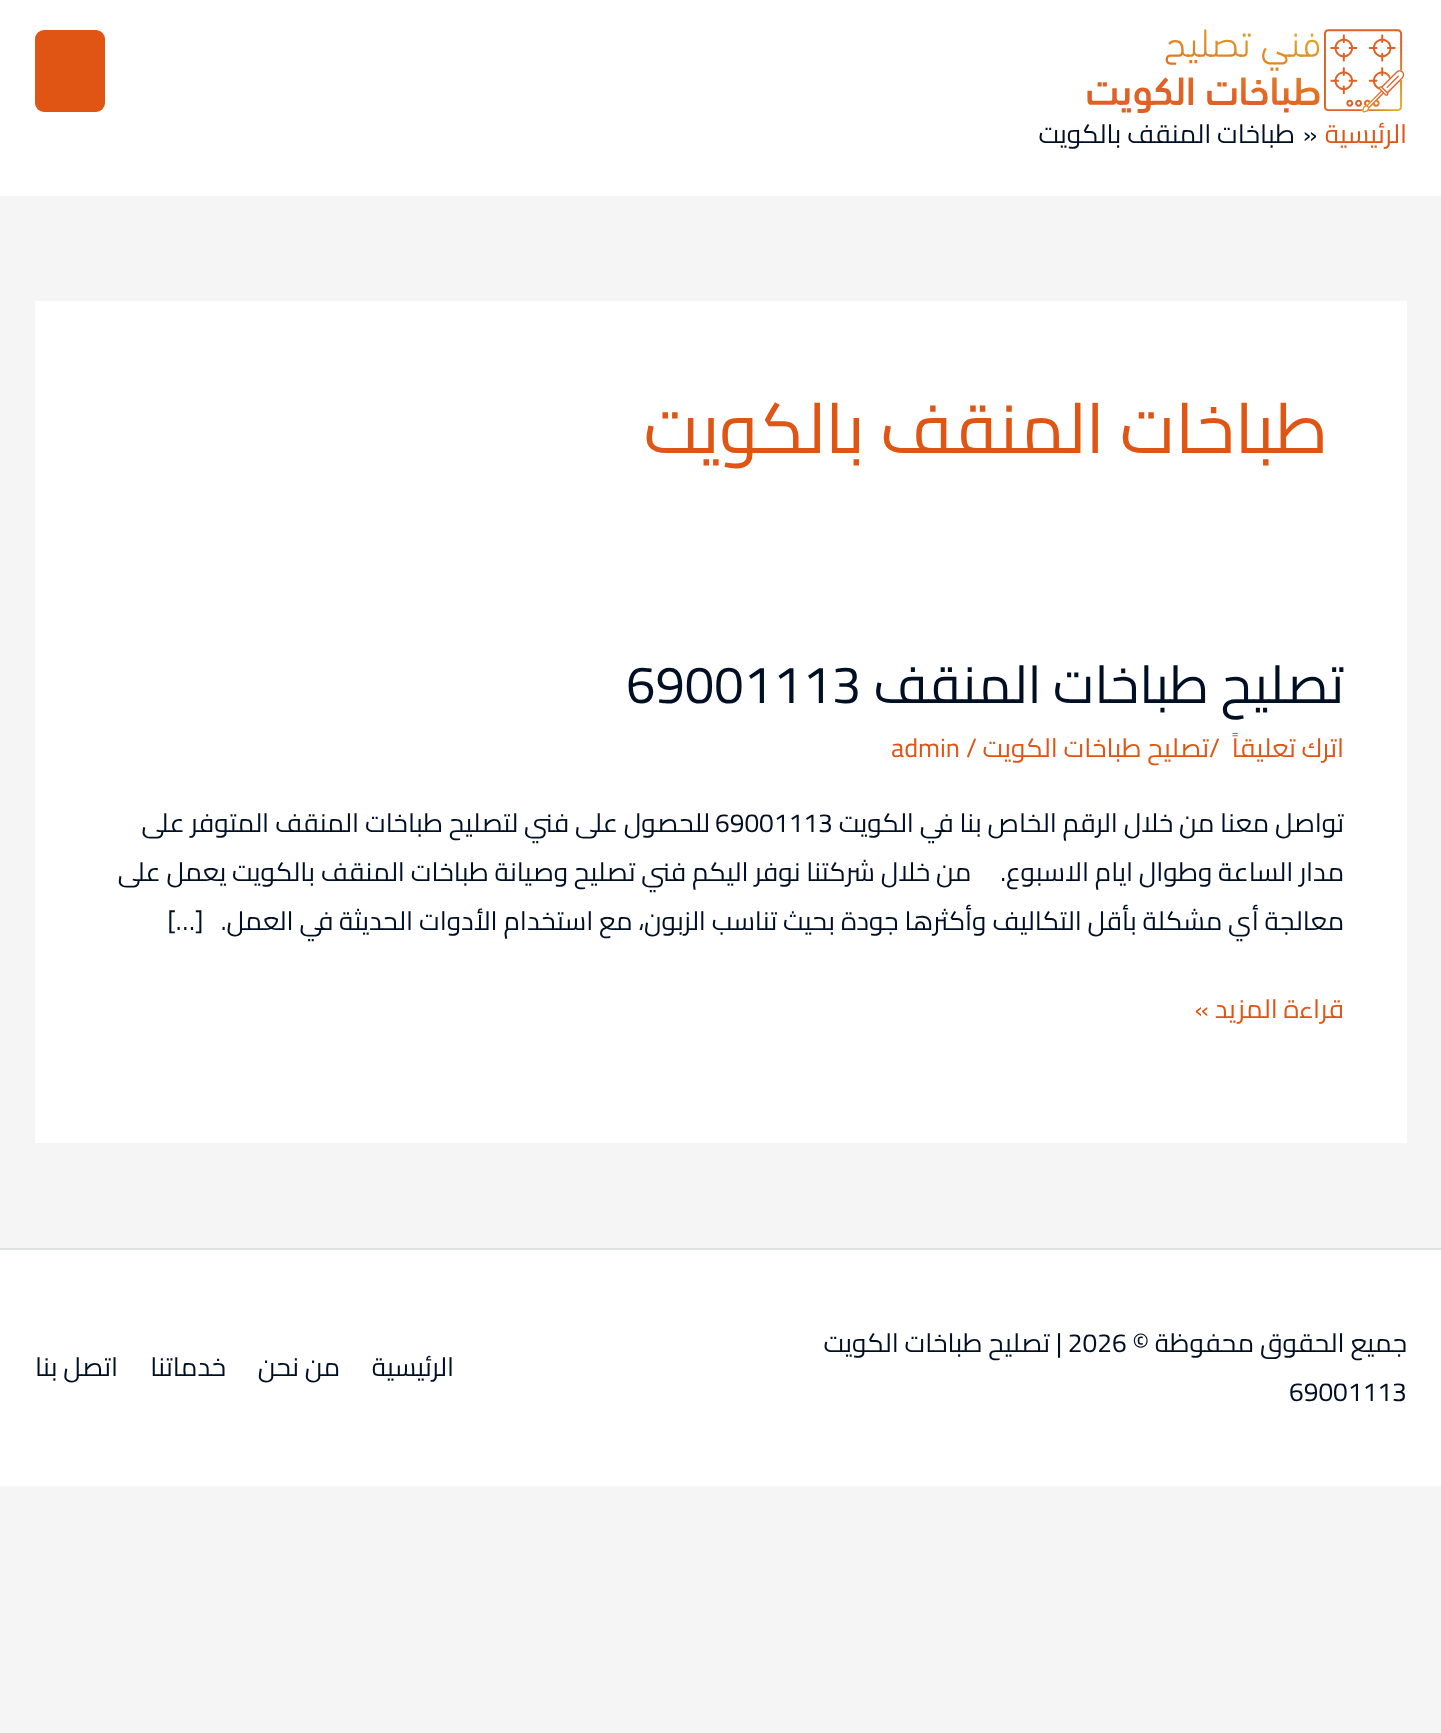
<svg xmlns="http://www.w3.org/2000/svg" width="1441" height="1733" viewBox="0 0 1441 1733">
  <rect width="100%" height="100%" fill="#f5f5f5"/>
  <rect x="0" y="0" width="1441" height="196" fill="#ffffff"/>
  <image x="1087" y="29" width="318" height="84" href="img1.png"/>
  <rect x="35" y="30" width="70" height="82" rx="9" fill="#e05414"/>
  <text x="1407" y="143" font-family="Cairo" font-size="26.25" direction="rtl" fill="#e05414">الرئيسية</text>
  <text x="1303" y="143" font-family="Cairo" font-size="26.25" fill="#000f23">»</text>
  <text x="1295" y="143" font-family="Cairo" font-size="26.25" direction="rtl" fill="#000f23">طباخات المنقف بالكويت</text>
  <rect x="35" y="301" width="1372" height="842" fill="#ffffff"/>
  <text x="1328" y="453" font-family="Cairo" font-size="70" direction="rtl" fill="#e05414">طباخات المنقف بالكويت</text>
  <text x="1344" y="703" font-family="Cairo" font-size="52.5" direction="rtl" fill="#000f23">تصليح طباخات المنقف</text>
  <text x="626" y="703" font-family="Cairo" font-size="52.5" fill="#000f23">69001113</text>
  <text x="1344" y="757" font-family="Cairo" font-size="26.25" direction="rtl" fill="#e05414">اترك تعليقاً</text>
  <text x="1209" y="757" font-family="Cairo" font-size="26.25" fill="#e05414">/</text>
  <text x="1209" y="757" font-family="Cairo" font-size="26.25" direction="rtl" fill="#e05414">تصليح طباخات الكويت</text>
  <text x="966" y="757" font-family="Cairo" font-size="26.25" fill="#e05414">/</text>
  <text x="891" y="757" font-family="Cairo" font-size="26.25" fill="#e05414">admin</text>
  <text x="1344" y="832" font-family="Cairo" font-size="26.25" direction="rtl" fill="#000f23">تواصل معنا من خلال الرقم الخاص بنا في الكويت</text>
  <text x="715" y="832" font-family="Cairo" font-size="26.25" fill="#000f23">69001113</text>
  <text x="710" y="832" font-family="Cairo" font-size="26.25" direction="rtl" fill="#000f23">للحصول على فني لتصليح طباخات المنقف المتوفر على</text>
  <text x="1344" y="881" font-family="Cairo" font-size="26.25" direction="rtl" fill="#000f23" xml:space="preserve">مدار الساعة وطوال ايام الاسبوع.     من خلال شركتنا نوفر اليكم فني تصليح وصيانة طباخات المنقف بالكويت يعمل على</text>
  <text x="1344" y="930" font-family="Cairo" font-size="26.25" direction="rtl" fill="#000f23" xml:space="preserve">معالجة أي مشكلة بأقل التكاليف وأكثرها جودة بحيث تناسب الزبون، مع استخدام الأدوات الحديثة في العمل.   […]</text>
  <text x="1344" y="1018" font-family="Cairo" font-size="26.25" direction="rtl" fill="#e05414">قراءة المزيد »</text>
  <rect x="0" y="1248" width="1441" height="2" fill="#dee1e3"/>
  <rect x="0" y="1250" width="1441" height="236" fill="#ffffff"/>
  <text x="1407" y="1352" font-family="Cairo" font-size="26.25" direction="rtl" fill="#000f23">جميع الحقوق محفوظة ©</text>
  <text x="1056" y="1352" font-family="Cairo" font-size="26.25" fill="#000f23">| 2026</text>
  <text x="1050" y="1352" font-family="Cairo" font-size="26.25" direction="rtl" fill="#000f23">تصليح طباخات الكويت</text>
  <text x="1289" y="1401" font-family="Cairo" font-size="26.25" fill="#000f23">69001113</text>
  <text x="454" y="1376" font-family="Cairo" font-size="26.25" direction="rtl" fill="#000f23">الرئيسية</text>
  <text x="340" y="1376" font-family="Cairo" font-size="26.25" direction="rtl" fill="#000f23">من نحن</text>
  <text x="226" y="1376" font-family="Cairo" font-size="26.25" direction="rtl" fill="#000f23">خدماتنا</text>
  <text x="118" y="1376" font-family="Cairo" font-size="26.25" direction="rtl" fill="#000f23">اتصل بنا</text>
</svg>
